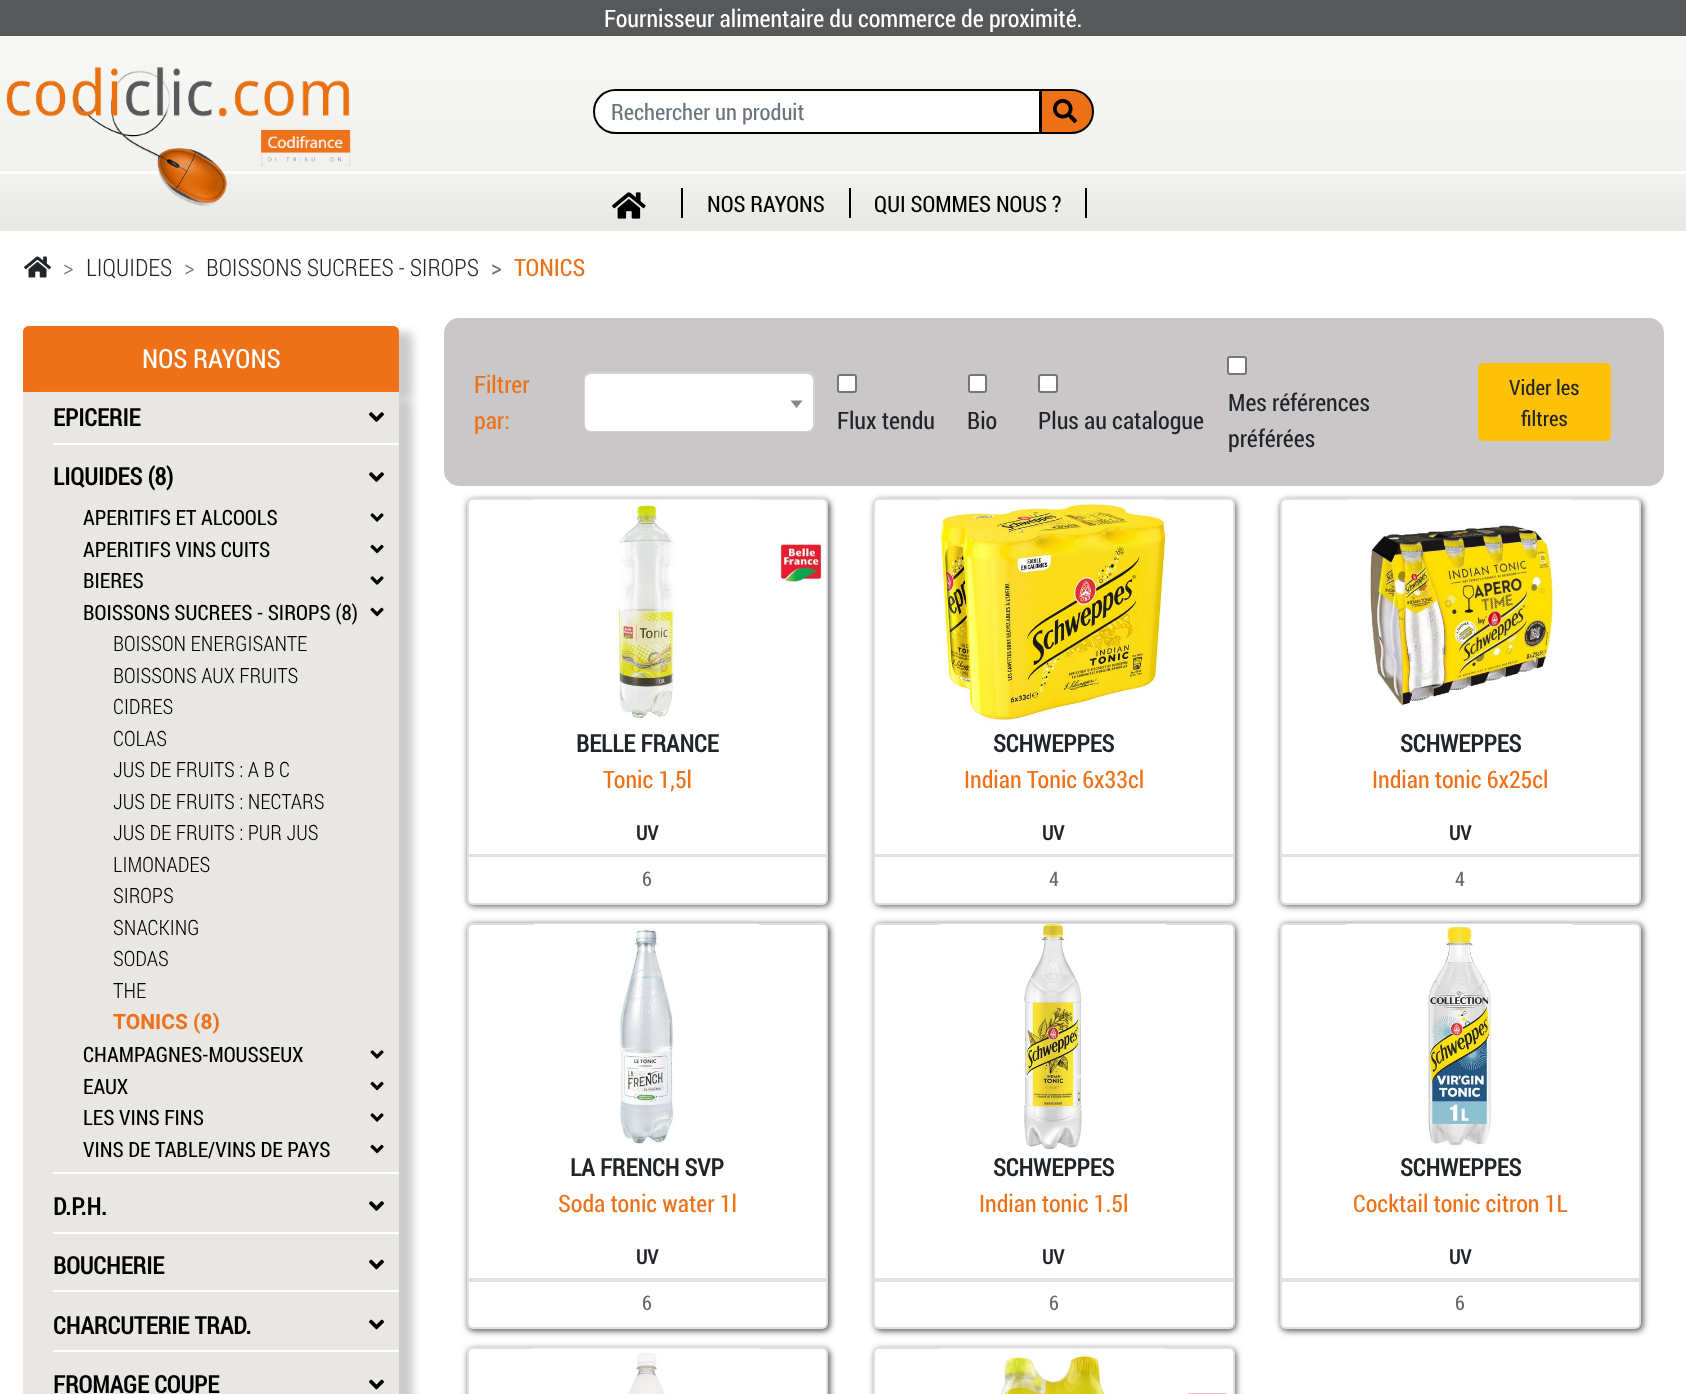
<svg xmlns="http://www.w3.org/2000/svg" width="1686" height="1394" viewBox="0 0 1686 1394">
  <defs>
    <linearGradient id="g1" gradientUnits="userSpaceOnUse" x1="843" y1="36" x2="843" y2="171"><stop offset="0" stop-color="#f7f7f5"/><stop offset="1" stop-color="#f1f1ee"/></linearGradient>
    <linearGradient id="g2" gradientUnits="userSpaceOnUse" x1="843" y1="174" x2="843" y2="231"><stop offset="0" stop-color="#f1f1ee"/><stop offset="1" stop-color="#e8e7e3"/></linearGradient>
    <filter id="blur1" x="-50%" y="-200%" width="200%" height="500%"><feGaussianBlur stdDeviation="4"/></filter>
    <filter id="blur2" x="-50%" y="-200%" width="200%" height="500%"><feGaussianBlur stdDeviation="3"/></filter>
  </defs>
  <rect width="100%" height="100%" fill="#ffffff"/>
  <rect x="0" y="0" width="1686" height="36" fill="#57585a"/>
  <text x="604" y="27" font-family="Roboto Condensed" font-size="24" fill="#fffffe">Fournisseur alimentaire du commerce de proximité.</text>
  <rect x="0" y="36" width="1686" height="135" fill="url(#g1)"/>
  <rect x="0" y="174" width="1686" height="57" fill="url(#g2)"/>
  <image x="6" y="67" width="345" height="139" href="img1.png"/>
  <path d="M1041 90H1071.5C1083.5 90 1093 99.5 1093 111.5C1093 123.5 1083.5 133 1071.5 133H1041Z" fill="#ee7117" stroke="#000000" stroke-width="2"/>
  <path d="M615.5 90H1040V133H615.5C603.5 133 594 123.5 594 111.5C594 99.5 603.5 90 615.5 90Z" fill="#ffffff" stroke="#000000" stroke-width="2"/>
  <text x="611" y="120" font-family="Roboto Condensed" font-size="22.5" fill="#6c757d">Rechercher un produit</text>
  <image x="1053" y="99" width="24" height="24" href="img2.png"/>
  <image x="612" y="192" width="34" height="27" href="img3.png"/>
  <rect x="681" y="188" width="2" height="30" fill="#000000"/>
  <text x="707" y="212" font-family="Roboto Condensed" font-size="22.5" fill="#000000">NOS RAYONS</text>
  <rect x="849" y="188" width="2" height="30" fill="#000000"/>
  <text x="874" y="212" font-family="Roboto Condensed" font-size="22.5" fill="#000000">QUI SOMMES NOUS ?</text>
  <rect x="1085" y="188" width="2" height="30" fill="#000000"/>
  <image x="24" y="256" width="27" height="22" href="img4.png"/>
  <text x="63" y="276" font-family="Roboto Condensed" font-size="24" font-weight="300" fill="#6c757d">&gt;</text>
  <text x="86" y="276" font-family="Roboto Condensed" font-size="24" font-weight="300" fill="#212529">LIQUIDES</text>
  <text x="184" y="276" font-family="Roboto Condensed" font-size="24" font-weight="300" fill="#6c757d">&gt;</text>
  <text x="206" y="276" font-family="Roboto Condensed" font-size="24" font-weight="300" fill="#212529">BOISSONS SUCREES - SIROPS</text>
  <text x="491" y="276" font-family="Roboto Condensed" font-size="24" fill="#6c757d">&gt;</text>
  <text x="514" y="276" font-family="Roboto Condensed" font-size="24" fill="#ee7117">TONICS</text>
  <rect x="33" y="332" width="380" height="69" rx="8" fill="#cccccc" filter="url(#blur1)"/>
  <path d="M29 326H393C396.5 326 399 328.5 399 332V392H23V332C23 328.5 25.5 326 29 326Z" fill="#ee7117"/>
  <text x="142" y="368" font-family="Roboto Condensed" font-size="26.5" fill="#fffffe">NOS RAYONS</text>
  <rect x="33" y="398" width="380" height="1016" rx="8" fill="#cccccc" filter="url(#blur1)"/>
  <rect x="23" y="392" width="376" height="1002" fill="#e8e7e3"/>
  <text x="53" y="426" font-family="Roboto Condensed" font-size="24" font-weight="bold" fill="#000000">EPICERIE</text>
  <image x="369" y="412" width="15" height="10" href="img5.png"/>
  <rect x="53" y="443" width="346" height="2" fill="#ffffff"/>
  <text x="53" y="485" font-family="Roboto Condensed" font-size="24" font-weight="bold" fill="#000000">LIQUIDES (8)</text>
  <image x="369" y="472" width="15" height="10" href="img5.png"/>
  <text x="83" y="525" font-family="Roboto Condensed" font-size="21" fill="#000000">APERITIFS ET ALCOOLS</text>
  <image x="370" y="513" width="14" height="9" href="img6.png"/>
  <text x="83" y="557" font-family="Roboto Condensed" font-size="21" fill="#000000">APERITIFS VINS CUITS</text>
  <image x="370" y="544" width="14" height="10" href="img7.png"/>
  <text x="83" y="588" font-family="Roboto Condensed" font-size="21" fill="#000000">BIERES</text>
  <image x="370" y="576" width="14" height="9" href="img6.png"/>
  <text x="83" y="620" font-family="Roboto Condensed" font-size="21" fill="#000000">BOISSONS SUCREES - SIROPS (8)</text>
  <image x="370" y="607" width="14" height="10" href="img7.png"/>
  <text x="113" y="651" font-family="Roboto Condensed" font-size="21" font-weight="300" fill="#000000">BOISSON ENERGISANTE</text>
  <text x="113" y="683" font-family="Roboto Condensed" font-size="21" font-weight="300" fill="#000000">BOISSONS AUX FRUITS</text>
  <text x="113" y="714" font-family="Roboto Condensed" font-size="21" font-weight="300" fill="#000000">CIDRES</text>
  <text x="113" y="746" font-family="Roboto Condensed" font-size="21" font-weight="300" fill="#000000">COLAS</text>
  <text x="113" y="777" font-family="Roboto Condensed" font-size="21" font-weight="300" fill="#000000">JUS DE FRUITS : A B C</text>
  <text x="113" y="809" font-family="Roboto Condensed" font-size="21" font-weight="300" fill="#000000">JUS DE FRUITS : NECTARS</text>
  <text x="113" y="840" font-family="Roboto Condensed" font-size="21" font-weight="300" fill="#000000">JUS DE FRUITS : PUR JUS</text>
  <text x="113" y="872" font-family="Roboto Condensed" font-size="21" font-weight="300" fill="#000000">LIMONADES</text>
  <text x="113" y="903" font-family="Roboto Condensed" font-size="21" font-weight="300" fill="#000000">SIROPS</text>
  <text x="113" y="935" font-family="Roboto Condensed" font-size="21" font-weight="300" fill="#000000">SNACKING</text>
  <text x="113" y="966" font-family="Roboto Condensed" font-size="21" font-weight="300" fill="#000000">SODAS</text>
  <text x="113" y="998" font-family="Roboto Condensed" font-size="21" font-weight="300" fill="#000000">THE</text>
  <text x="113" y="1029" font-family="Roboto" font-size="21" font-weight="bold" fill="#ee7117">TONICS (8)</text>
  <text x="83" y="1062" font-family="Roboto Condensed" font-size="21" fill="#000000">CHAMPAGNES-MOUSSEUX</text>
  <image x="370" y="1050" width="14" height="9" href="img6.png"/>
  <text x="83" y="1094" font-family="Roboto Condensed" font-size="21" fill="#000000">EAUX</text>
  <image x="370" y="1081" width="14" height="10" href="img7.png"/>
  <text x="83" y="1125" font-family="Roboto Condensed" font-size="21" fill="#000000">LES VINS FINS</text>
  <image x="370" y="1113" width="14" height="9" href="img6.png"/>
  <text x="83" y="1157" font-family="Roboto Condensed" font-size="21" fill="#000000">VINS DE TABLE/VINS DE PAYS</text>
  <image x="370" y="1144" width="14" height="10" href="img7.png"/>
  <rect x="53" y="1172" width="346" height="2" fill="#ffffff"/>
  <text x="53" y="1215" font-family="Roboto Condensed" font-size="24" font-weight="bold" fill="#000000">D.P.H.</text>
  <image x="369" y="1201" width="15" height="10" href="img5.png"/>
  <rect x="53" y="1232" width="346" height="2" fill="#ffffff"/>
  <text x="53" y="1274" font-family="Roboto Condensed" font-size="24" font-weight="bold" fill="#000000">BOUCHERIE</text>
  <image x="369" y="1259" width="15" height="11" href="img8.png"/>
  <rect x="53" y="1290" width="346" height="2" fill="#ffffff"/>
  <text x="53" y="1334" font-family="Roboto Condensed" font-size="24" font-weight="bold" fill="#000000">CHARCUTERIE TRAD.</text>
  <image x="369" y="1319" width="15" height="11" href="img8.png"/>
  <rect x="53" y="1350" width="346" height="2" fill="#ffffff"/>
  <text x="53" y="1393" font-family="Roboto Condensed" font-size="24" font-weight="bold" fill="#000000">FROMAGE COUPE</text>
  <image x="369" y="1379" width="15" height="11" href="img8.png"/>
  <rect x="444" y="318" width="1220" height="168" rx="15" fill="#c9c7c7"/>
  <text x="474" y="393" font-family="Roboto Condensed" font-size="24" fill="#ee7117">Filtrer</text>
  <text x="474" y="429" font-family="Roboto Condensed" font-size="24" fill="#ee7117">par:</text>
  <rect x="585" y="373" width="229" height="58" rx="5" fill="none" stroke="#ced4da" stroke-width="2"/>
  <rect x="585" y="374" width="228" height="57" rx="6" fill="#ffffff"/>
  <path d="M790.5 400.5H802.5L796.5 408Z" fill="#888888"/>
  <rect x="838" y="375" width="18" height="17" rx="2" fill="#ffffff" stroke="#767676" stroke-width="2"/>
  <text x="837" y="429" font-family="Roboto Condensed" font-size="24" fill="#212529">Flux tendu</text>
  <rect x="969" y="375" width="17" height="17" rx="2" fill="#ffffff" stroke="#767676" stroke-width="2"/>
  <text x="967" y="429" font-family="Roboto Condensed" font-size="24" fill="#212529">Bio</text>
  <rect x="1039" y="375" width="18" height="17" rx="2" fill="#ffffff" stroke="#767676" stroke-width="2"/>
  <text x="1038" y="429" font-family="Roboto Condensed" font-size="24" fill="#212529">Plus au catalogue</text>
  <rect x="1228" y="357" width="18" height="17" rx="2" fill="#ffffff" stroke="#767676" stroke-width="2"/>
  <text x="1228" y="411" font-family="Roboto Condensed" font-size="24" fill="#212529">Mes références</text>
  <text x="1228" y="447" font-family="Roboto Condensed" font-size="24" fill="#212529">préférées</text>
  <rect x="1479" y="364" width="131" height="76" rx="4" fill="#ffc107" stroke="#ffc107" stroke-width="2"/>
  <text x="1509" y="395" font-family="Roboto Condensed" font-size="21" fill="#212529">Vider les</text>
  <text x="1521" y="426" font-family="Roboto Condensed" font-size="21" fill="#212529">filtres</text>
  <rect x="468" y="500" width="362" height="406" rx="6" fill="#555555" filter="url(#blur2)"/>
  <rect x="467" y="498" width="361" height="407" rx="6" fill="#ffffff"/>
  <rect x="468" y="499" width="359" height="405" rx="5" fill="none" stroke="#000000" stroke-opacity="0.12" stroke-width="2"/>
  <image x="534" y="499" width="225" height="221" href="img9.png"/>
  <image x="778" y="543" width="46" height="39" href="img10.png"/>
  <text x="576" y="752" font-family="Roboto Condensed" font-size="24" font-weight="bold" fill="#212529">BELLE FRANCE</text>
  <text x="603" y="788" font-family="Roboto Condensed" font-size="24" fill="#ee7117">Tonic 1,5l</text>
  <rect x="467" y="854" width="361" height="3" fill="#dee2e6"/>
  <text x="636" y="840" font-family="Roboto Condensed" font-size="20" font-weight="bold" fill="#212529">UV</text>
  <text x="642" y="886" font-family="Roboto Condensed" font-size="20" fill="#666666">6</text>
  <rect x="875" y="500" width="361" height="406" rx="6" fill="#555555" filter="url(#blur2)"/>
  <rect x="873" y="498" width="362" height="407" rx="6" fill="#ffffff"/>
  <rect x="874" y="499" width="360" height="405" rx="5" fill="none" stroke="#000000" stroke-opacity="0.12" stroke-width="2"/>
  <image x="940" y="499" width="226" height="226" href="img11.png"/>
  <text x="993" y="752" font-family="Roboto Condensed" font-size="24" font-weight="bold" fill="#212529">SCHWEPPES</text>
  <text x="964" y="788" font-family="Roboto Condensed" font-size="24" fill="#ee7117">Indian Tonic 6x33cl</text>
  <rect x="873" y="854" width="362" height="3" fill="#dee2e6"/>
  <text x="1042" y="840" font-family="Roboto Condensed" font-size="20" font-weight="bold" fill="#212529">UV</text>
  <text x="1049" y="886" font-family="Roboto Condensed" font-size="20" fill="#666666">4</text>
  <rect x="1281" y="500" width="362" height="406" rx="6" fill="#555555" filter="url(#blur2)"/>
  <rect x="1280" y="498" width="361" height="407" rx="6" fill="#ffffff"/>
  <rect x="1281" y="499" width="359" height="405" rx="5" fill="none" stroke="#000000" stroke-opacity="0.12" stroke-width="2"/>
  <image x="1347" y="499" width="225" height="208" href="img12.png"/>
  <text x="1400" y="752" font-family="Roboto Condensed" font-size="24" font-weight="bold" fill="#212529">SCHWEPPES</text>
  <text x="1372" y="788" font-family="Roboto Condensed" font-size="24" fill="#ee7117">Indian tonic 6x25cl</text>
  <rect x="1280" y="854" width="361" height="3" fill="#dee2e6"/>
  <text x="1449" y="840" font-family="Roboto Condensed" font-size="20" font-weight="bold" fill="#212529">UV</text>
  <text x="1455" y="886" font-family="Roboto Condensed" font-size="20" fill="#666666">4</text>
  <rect x="468" y="924" width="362" height="407" rx="6" fill="#555555" filter="url(#blur2)"/>
  <rect x="467" y="923" width="361" height="406" rx="6" fill="#ffffff"/>
  <rect x="468" y="924" width="359" height="404" rx="5" fill="none" stroke="#000000" stroke-opacity="0.12" stroke-width="2"/>
  <image x="534" y="924" width="225" height="221" href="img13.png"/>
  <text x="570" y="1176" font-family="Roboto Condensed" font-size="24" font-weight="bold" fill="#212529">LA FRENCH SVP</text>
  <text x="558" y="1212" font-family="Roboto Condensed" font-size="24" fill="#ee7117">Soda tonic water 1l</text>
  <rect x="467" y="1278" width="361" height="3" fill="#dee2e6"/>
  <text x="636" y="1264" font-family="Roboto Condensed" font-size="20" font-weight="bold" fill="#212529">UV</text>
  <rect x="468" y="1281" width="359" height="1" fill="#dee2e6"/>
  <text x="642" y="1310" font-family="Roboto Condensed" font-size="20" fill="#666666">6</text>
  <rect x="875" y="924" width="361" height="407" rx="6" fill="#555555" filter="url(#blur2)"/>
  <rect x="873" y="923" width="362" height="406" rx="6" fill="#ffffff"/>
  <rect x="874" y="924" width="360" height="404" rx="5" fill="none" stroke="#000000" stroke-opacity="0.12" stroke-width="2"/>
  <image x="940" y="924" width="226" height="225" href="img14.png"/>
  <text x="993" y="1176" font-family="Roboto Condensed" font-size="24" font-weight="bold" fill="#212529">SCHWEPPES</text>
  <text x="979" y="1212" font-family="Roboto Condensed" font-size="24" fill="#ee7117">Indian tonic 1.5l</text>
  <rect x="873" y="1278" width="362" height="3" fill="#dee2e6"/>
  <text x="1042" y="1264" font-family="Roboto Condensed" font-size="20" font-weight="bold" fill="#212529">UV</text>
  <rect x="873" y="1281" width="360" height="1" fill="#dee2e6"/>
  <text x="1049" y="1310" font-family="Roboto Condensed" font-size="20" fill="#666666">6</text>
  <rect x="1281" y="924" width="362" height="407" rx="6" fill="#555555" filter="url(#blur2)"/>
  <rect x="1280" y="923" width="361" height="406" rx="6" fill="#ffffff"/>
  <rect x="1281" y="924" width="359" height="404" rx="5" fill="none" stroke="#000000" stroke-opacity="0.12" stroke-width="2"/>
  <image x="1347" y="924" width="225" height="222" href="img15.png"/>
  <text x="1400" y="1176" font-family="Roboto Condensed" font-size="24" font-weight="bold" fill="#212529">SCHWEPPES</text>
  <text x="1353" y="1212" font-family="Roboto Condensed" font-size="24" fill="#ee7117">Cocktail tonic citron 1L</text>
  <rect x="1280" y="1278" width="361" height="3" fill="#dee2e6"/>
  <text x="1449" y="1264" font-family="Roboto Condensed" font-size="20" font-weight="bold" fill="#212529">UV</text>
  <rect x="1280" y="1281" width="360" height="1" fill="#dee2e6"/>
  <text x="1455" y="1310" font-family="Roboto Condensed" font-size="20" fill="#666666">6</text>
  <rect x="468" y="1349" width="362" height="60" rx="6" fill="#555555" filter="url(#blur2)"/>
  <rect x="467" y="1347" width="361" height="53" rx="6" fill="#ffffff"/>
  <rect x="468" y="1348" width="359" height="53" rx="5" fill="none" stroke="#000000" stroke-opacity="0.12" stroke-width="2"/>
  <image x="534" y="1348" width="225" height="46" href="img16.png"/>
  <rect x="875" y="1349" width="361" height="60" rx="6" fill="#555555" filter="url(#blur2)"/>
  <rect x="873" y="1347" width="362" height="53" rx="6" fill="#ffffff"/>
  <rect x="874" y="1348" width="360" height="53" rx="5" fill="none" stroke="#000000" stroke-opacity="0.12" stroke-width="2"/>
  <image x="940" y="1348" width="226" height="46" href="img17.png"/>
  <image x="1185" y="1392" width="45" height="2" href="img18.png"/>
</svg>
